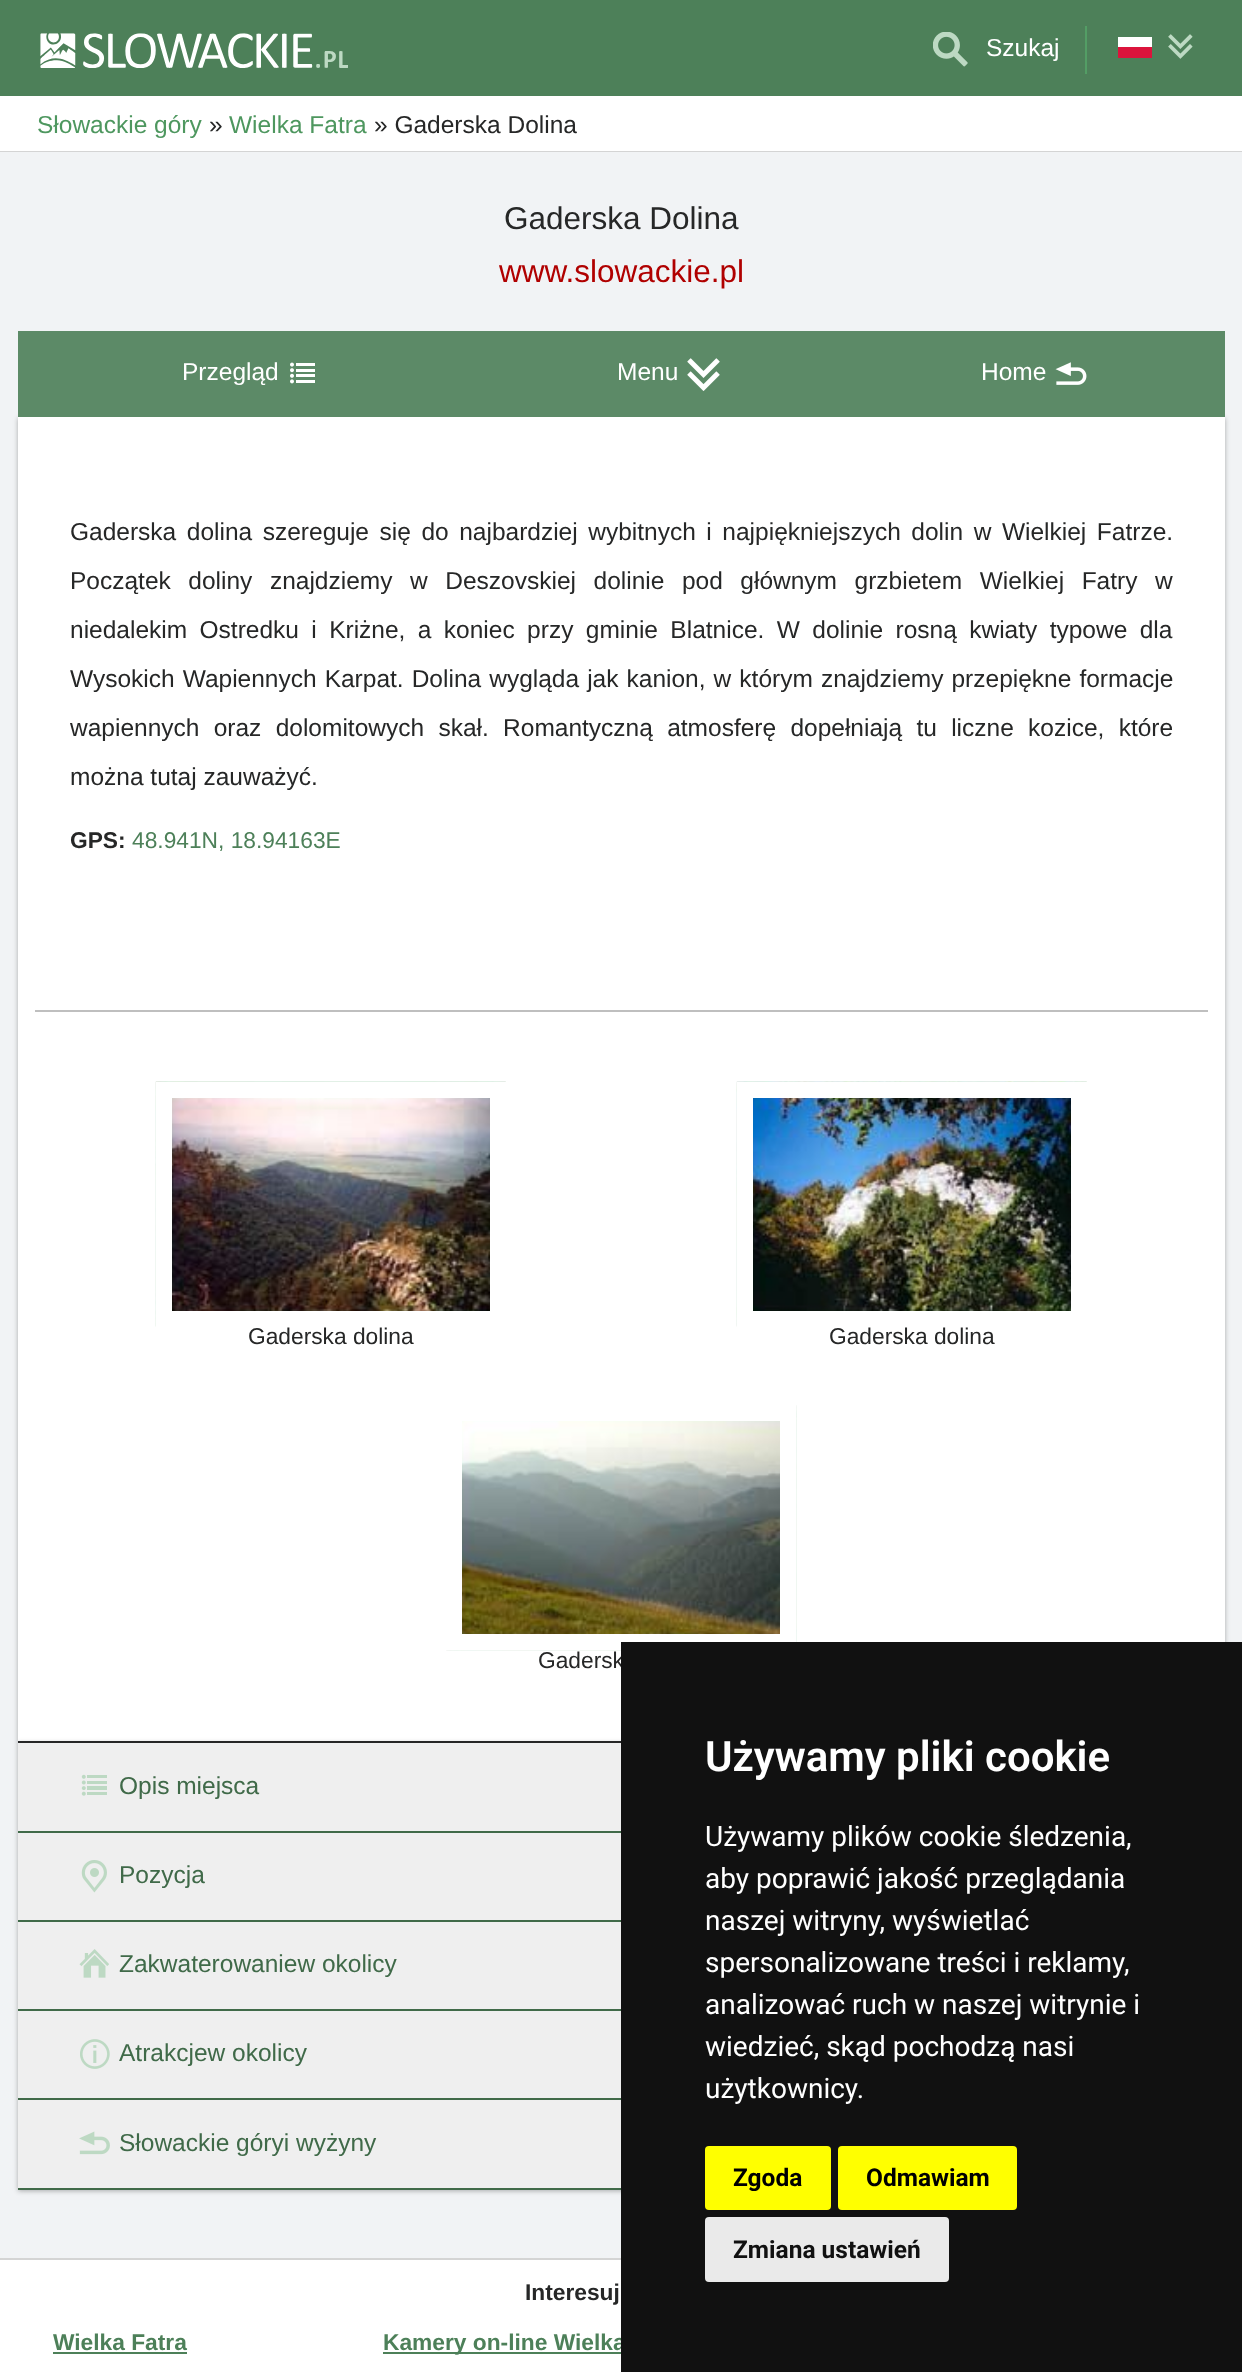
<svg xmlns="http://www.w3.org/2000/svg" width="1242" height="2372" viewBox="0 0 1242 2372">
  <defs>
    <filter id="blur1" x="-50%" y="-200%" width="200%" height="500%"><feGaussianBlur stdDeviation="2.5"/></filter>
  </defs>
  <rect width="100%" height="100%" fill="#f1f3f5"/>
  <rect x="0" y="0" width="1242" height="96" fill="#4d8059"/>
  <image x="40" y="33" width="308" height="35" href="img1.png"/>
  <image x="933" y="32" width="35" height="35" href="img2.png"/>
  <text x="986" y="56" font-family="Liberation Sans" font-size="24.5" fill="#ffffff">Szukaj</text>
  <rect x="1085" y="26" width="2" height="48" fill="#539e65"/>
  <rect x="1118" y="37" width="34" height="10" fill="#ffffff"/>
  <rect x="1118" y="47" width="34" height="11" fill="#dc143c"/>
  <image x="1168" y="34" width="25" height="25" href="img3.png"/>
  <rect x="0" y="96" width="1242" height="55" fill="#ffffff"/>
  <rect x="0" y="151" width="1242" height="1" fill="#d4d4d4"/>
  <text x="37" y="133" font-family="Liberation Sans" font-size="24.5" fill="#4e975f">Słowackie góry</text>
  <text x="209" y="133" font-family="Liberation Sans" font-size="24.5" fill="#262727">»</text>
  <text x="229" y="133" font-family="Liberation Sans" font-size="24.5" fill="#4e975f">Wielka Fatra</text>
  <text x="374" y="133" font-family="Liberation Sans" font-size="24.5" fill="#262727">» Gaderska Dolina</text>
  <text x="504" y="229" font-family="Liberation Sans" font-size="31.5" fill="#262727">Gaderska Dolina</text>
  <text x="499" y="282" font-family="Liberation Sans" font-size="31.5" fill="#b00000">www.slowackie.pl</text>
  <rect x="18" y="418" width="1207" height="1325" fill="#000000" fill-opacity="0.3" filter="url(#blur1)"/>
  <rect x="18" y="331" width="1207" height="86" fill="#5c8a67"/>
  <text x="182" y="380" font-family="Liberation Sans" font-size="24.5" fill="#ffffff">Przegląd</text>
  <image x="290" y="362" width="25" height="22" href="img4.png"/>
  <text x="617" y="380" font-family="Liberation Sans" font-size="24.5" fill="#ffffff">Menu</text>
  <image x="687" y="358" width="33" height="33" href="img5.png"/>
  <text x="981" y="380" font-family="Liberation Sans" font-size="24.5" fill="#ffffff">Home</text>
  <image x="1055" y="362" width="32" height="23" href="img6.png"/>
  <rect x="18" y="417" width="1207" height="1324" fill="#ffffff"/>
  <text x="70" y="540" word-spacing="3.75" font-family="Liberation Sans" font-size="24.5" fill="#262727">Gaderska dolina szereguje się do najbardziej wybitnych i najpiękniejszych dolin w Wielkiej Fatrze.</text>
  <text x="70" y="589" word-spacing="10.75" font-family="Liberation Sans" font-size="24.5" fill="#262727">Początek doliny znajdziemy w Deszovskiej dolinie pod głównym grzbietem Wielkiej Fatry w</text>
  <text x="70" y="638" word-spacing="5.6" font-family="Liberation Sans" font-size="24.5" fill="#262727">niedalekim Ostredku i Kriżne, a koniec przy gminie Blatnice. W dolinie rosną kwiaty typowe dla</text>
  <text x="70" y="687" word-spacing="1.25" font-family="Liberation Sans" font-size="24.5" fill="#262727">Wysokich Wapiennych Karpat. Dolina wygląda jak kanion, w którym znajdziemy przepiękne formacje</text>
  <text x="70" y="736" word-spacing="7.5" font-family="Liberation Sans" font-size="24.5" fill="#262727">wapiennych oraz dolomitowych skał. Romantyczną atmosferę dopełniają tu liczne kozice, które</text>
  <text x="70" y="785" font-family="Liberation Sans" font-size="24.5" fill="#262727">można tutaj zauważyć.</text>
  <text x="70" y="848" font-family="Liberation Sans" font-size="22.75" font-weight="bold" fill="#262727">GPS:</text>
  <text x="132" y="848" font-family="Liberation Sans" font-size="22.75" fill="#4d8059">48.941N, 18.94163E</text>
  <rect x="35" y="1010" width="1173" height="2" fill="#bfbfbf"/>
  <image x="155" y="1081" width="351" height="246" href="img7.png"/>
  <rect x="164" y="1090" width="334" height="229" fill="none" stroke="#ffffff" stroke-width="16"/>
  <text x="248" y="1344" font-family="Liberation Sans" font-size="22.75" fill="#262727">Gaderska dolina</text>
  <image x="736" y="1081" width="351" height="246" href="img8.png"/>
  <rect x="745" y="1090" width="334" height="229" fill="none" stroke="#ffffff" stroke-width="16"/>
  <text x="829" y="1344" font-family="Liberation Sans" font-size="22.75" fill="#262727">Gaderska dolina</text>
  <image x="446" y="1405" width="351" height="246" href="img9.png"/>
  <rect x="454" y="1413" width="334" height="229" fill="none" stroke="#ffffff" stroke-width="16"/>
  <text x="538" y="1668" font-family="Liberation Sans" font-size="22.75" fill="#262727">Gadersk</text>
  <rect x="18" y="1743" width="1207" height="448" fill="#000000" fill-opacity="0.3" filter="url(#blur1)"/>
  <rect x="18" y="1741" width="603" height="2" fill="#262727"/>
  <rect x="18" y="1743" width="603" height="88" fill="#efefef"/>
  <rect x="18" y="1831" width="603" height="2" fill="#406a49"/>
  <image x="81" y="1774" width="26" height="22" href="img10.png"/>
  <text x="119" y="1794" font-family="Liberation Sans" font-size="24.5" fill="#406a49">Opis miejsca</text>
  <rect x="18" y="1833" width="603" height="87" fill="#efefef"/>
  <rect x="18" y="1920" width="603" height="2" fill="#406a49"/>
  <image x="81" y="1860" width="26" height="33" href="img11.png"/>
  <text x="119" y="1883" font-family="Liberation Sans" font-size="24.5" fill="#406a49">Pozycja</text>
  <rect x="18" y="1922" width="603" height="87" fill="#efefef"/>
  <rect x="18" y="2009" width="603" height="2" fill="#406a49"/>
  <image x="79" y="1949" width="30" height="29" href="img12.png"/>
  <text x="119" y="1972" font-family="Liberation Sans" font-size="24.5" fill="#406a49">Zakwaterowaniew okolicy</text>
  <rect x="18" y="2011" width="603" height="87" fill="#efefef"/>
  <rect x="18" y="2098" width="603" height="2" fill="#406a49"/>
  <image x="80" y="2039" width="30" height="30" href="img13.png"/>
  <text x="119" y="2061" font-family="Liberation Sans" font-size="24.5" fill="#406a49">Atrakcjew okolicy</text>
  <rect x="18" y="2100" width="603" height="88" fill="#efefef"/>
  <rect x="18" y="2188" width="603" height="2" fill="#406a49"/>
  <image x="79" y="2131" width="31" height="24" href="img14.png"/>
  <text x="119" y="2151" font-family="Liberation Sans" font-size="24.5" fill="#406a49">Słowackie góryi wyżyny</text>
  <rect x="0" y="2260" width="621" height="112" fill="#ffffff"/>
  <rect x="383" y="2352" width="238" height="2" fill="#4d8059"/>
  <text x="383" y="2350" font-family="Liberation Sans" font-size="22.75" font-weight="bold" fill="#4d8059">Kamery on-line Wielka</text>
  <rect x="621" y="1642" width="621" height="730" fill="#111111"/>
  <text x="705" y="1771" font-family="Roboto" font-size="42" font-weight="600" fill="#ffffff">Używamy pliki cookie</text>
  <text x="705" y="1846" font-family="Roboto" font-size="28" fill="#ffffff">Używamy plików cookie śledzenia,</text>
  <text x="705" y="1888" font-family="Roboto" font-size="28" fill="#ffffff">aby poprawić jakość przeglądania</text>
  <text x="705" y="1930" font-family="Roboto" font-size="28" fill="#ffffff">naszej witryny, wyświetlać</text>
  <text x="705" y="1972" font-family="Roboto" font-size="28" fill="#ffffff">spersonalizowane treści i reklamy,</text>
  <text x="705" y="2014" font-family="Roboto" font-size="28" fill="#ffffff">analizować ruch w naszej witrynie i</text>
  <text x="705" y="2056" font-family="Roboto" font-size="28" fill="#ffffff">wiedzieć, skąd pochodzą nasi</text>
  <text x="705" y="2098" font-family="Roboto" font-size="28" fill="#ffffff">użytkownicy.</text>
  <rect x="705" y="2146" width="126" height="64" rx="4" fill="#ffff00"/>
  <text x="733" y="2186" font-family="Roboto" font-size="24.5" font-weight="bold" fill="#000000">Zgoda</text>
  <rect x="838" y="2146" width="179" height="64" rx="4" fill="#ffff00"/>
  <text x="866" y="2186" font-family="Roboto" font-size="24.5" font-weight="bold" fill="#000000">Odmawiam</text>
  <rect x="705" y="2217" width="244" height="65" rx="4" fill="#eaeaea"/>
  <text x="733" y="2258" font-family="Roboto" font-size="24.5" font-weight="bold" fill="#111111">Zmiana ustawień</text>
  <rect x="0" y="2258" width="621" height="2" fill="#d4d4d4"/>
  <text x="525" y="2300" font-family="Liberation Sans" font-size="22.75" font-weight="bold" fill="#262727">Interesuj</text>
  <text x="53" y="2350" font-family="Liberation Sans" font-size="22.75" font-weight="bold" fill="#4d8059">Wielka Fatra</text>
  <rect x="53" y="2352" width="134" height="2" fill="#4d8059"/>
</svg>
